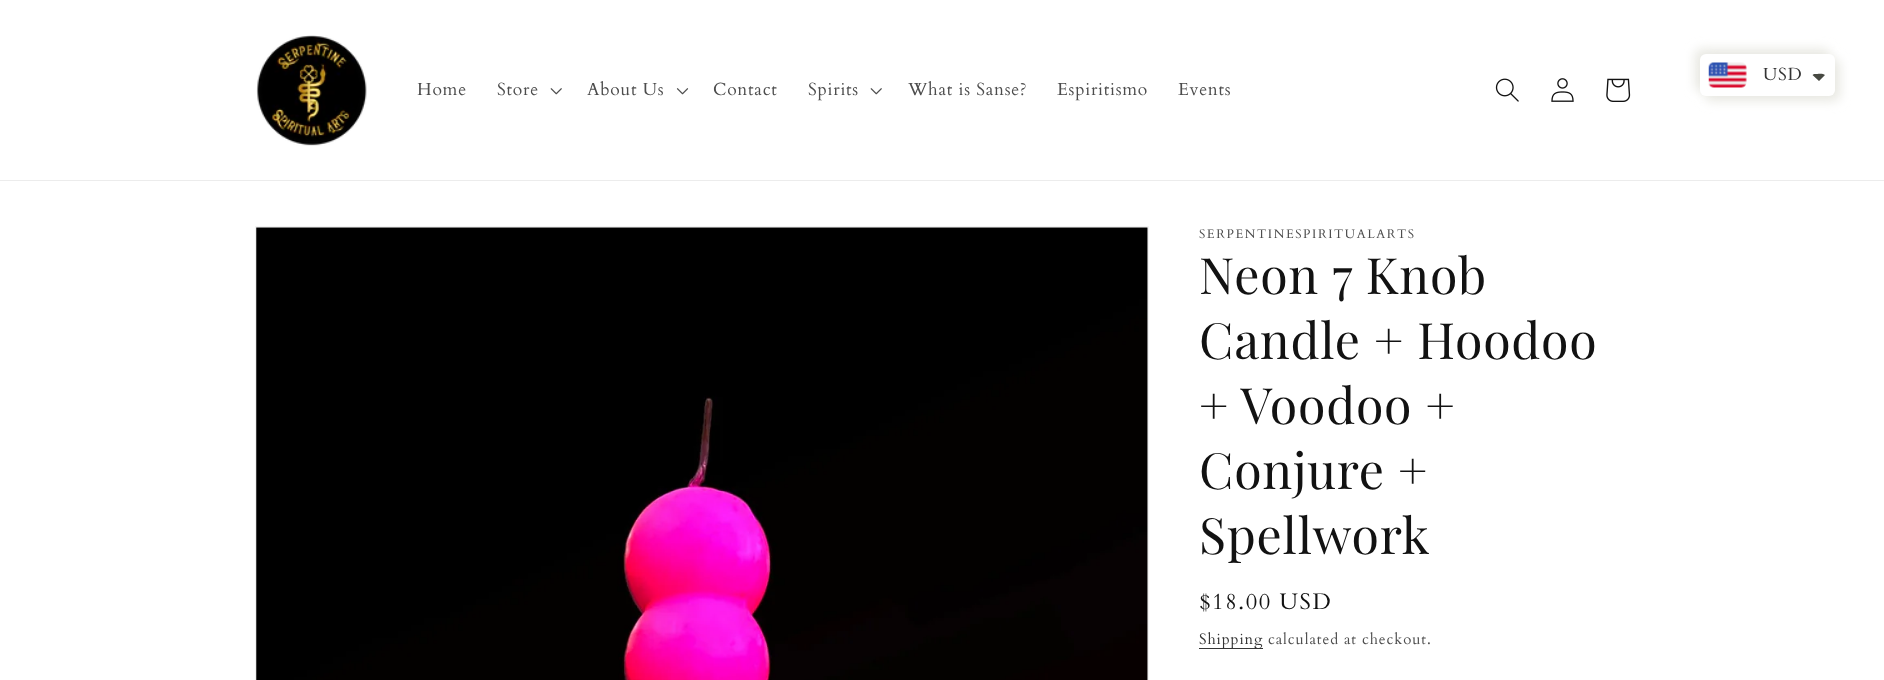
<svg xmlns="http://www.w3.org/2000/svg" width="1884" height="680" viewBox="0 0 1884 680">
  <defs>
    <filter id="blur1" x="-50%" y="-200%" width="200%" height="500%"><feGaussianBlur stdDeviation="5.5"/></filter>
  </defs>
  <rect width="100%" height="100%" fill="#ffffff"/>
  <rect x="1695" y="49" width="135" height="42" rx="6" fill="#e8e8e2" filter="url(#blur1)"/>
  <rect x="1705" y="59" width="135" height="42" rx="6" fill="#e8e8e2" filter="url(#blur1)"/>
  <rect x="1700" y="54" width="135" height="42" rx="6" fill="#ffffff"/>
  <image x="1708" y="62" width="39" height="26" href="img1.png"/>
  <text x="1763" y="80" font-family="Cardo" font-size="17.5" letter-spacing="0.75" fill="#343434">USD</text>
  <path d="M1815 74C1817.5 74 1823 73 1825 75L1819 81L1812.5 75C1813 74.5 1814 74 1815 74Z" fill="#474942"/>
  <rect x="0" y="180" width="1884" height="1" fill="#ececec"/>
  <image x="256" y="35" width="111" height="111" href="img2.png"/>
  <text x="417" y="95" font-family="Cardo" font-size="17.5" letter-spacing="0.75" fill="#4d4d4d">Home</text>
  <text x="497" y="95" font-family="Cardo" font-size="17.5" letter-spacing="0.75" fill="#4d4d4d">Store</text>
  <image x="550" y="88" width="12" height="7" href="img3.png"/>
  <text x="587" y="95" font-family="Cardo" font-size="17.5" letter-spacing="0.75" fill="#4d4d4d">About Us</text>
  <image x="676" y="88" width="13" height="7" href="img4.png"/>
  <text x="713" y="95" font-family="Cardo" font-size="17.5" letter-spacing="0.75" fill="#4d4d4d">Contact</text>
  <text x="808" y="95" font-family="Cardo" font-size="17.5" letter-spacing="0.75" fill="#4d4d4d">Spirits</text>
  <image x="870" y="88" width="12" height="7" href="img3.png"/>
  <text x="908" y="95" font-family="Cardo" font-size="17.5" letter-spacing="0.75" fill="#4d4d4d">What is Sanse?</text>
  <text x="1057" y="95" font-family="Cardo" font-size="17.5" letter-spacing="0.75" fill="#4d4d4d">Espiritismo</text>
  <text x="1178" y="95" font-family="Cardo" font-size="17.5" letter-spacing="0.75" fill="#4d4d4d">Events</text>
  <image x="1495" y="78" width="24" height="24" href="img5.png"/>
  <image x="1551" y="78" width="23" height="24" href="img6.png"/>
  <image x="1606" y="78" width="25" height="24" href="img7.png"/>
  <rect x="255.5" y="226.5" width="893" height="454" fill="none" stroke="#f3f3f3"/>
  <image x="256" y="227" width="892" height="453" href="img8.png"/>
  <text x="1199" y="238" font-family="Cardo" font-size="12.5" letter-spacing="1.6" fill="#4d4d4d">SERPENTINESPIRITUALARTS</text>
  <text x="1199" y="294" font-family="Playfair Display" font-size="50" letter-spacing="0.75" fill="#121212">Neon 7 Knob</text>
  <text x="1199" y="359" font-family="Playfair Display" font-size="50" letter-spacing="0.75" fill="#121212">Candle + Hoodoo</text>
  <text x="1199" y="424" font-family="Playfair Display" font-size="50" letter-spacing="0.75" fill="#121212">+ Voodoo +</text>
  <text x="1199" y="489" font-family="Playfair Display" font-size="50" letter-spacing="0.75" fill="#121212">Conjure +</text>
  <text x="1199" y="554" font-family="Playfair Display" font-size="50" letter-spacing="0.75" fill="#121212">Spellwork</text>
  <text x="1199" y="609" font-family="Cardo" font-size="22.5" letter-spacing="1.6" fill="#121212">$18.00 USD</text>
  <rect x="1199" y="648" width="64" height="1" fill="#363636"/>
  <text x="1199" y="644" font-family="Cardo" font-size="15" letter-spacing="0.9" fill="#343434">Shipping</text>
  <text x="1268" y="644" font-family="Cardo" font-size="15" letter-spacing="0.9" fill="#4d4d4d">calculated at checkout.</text>
</svg>
